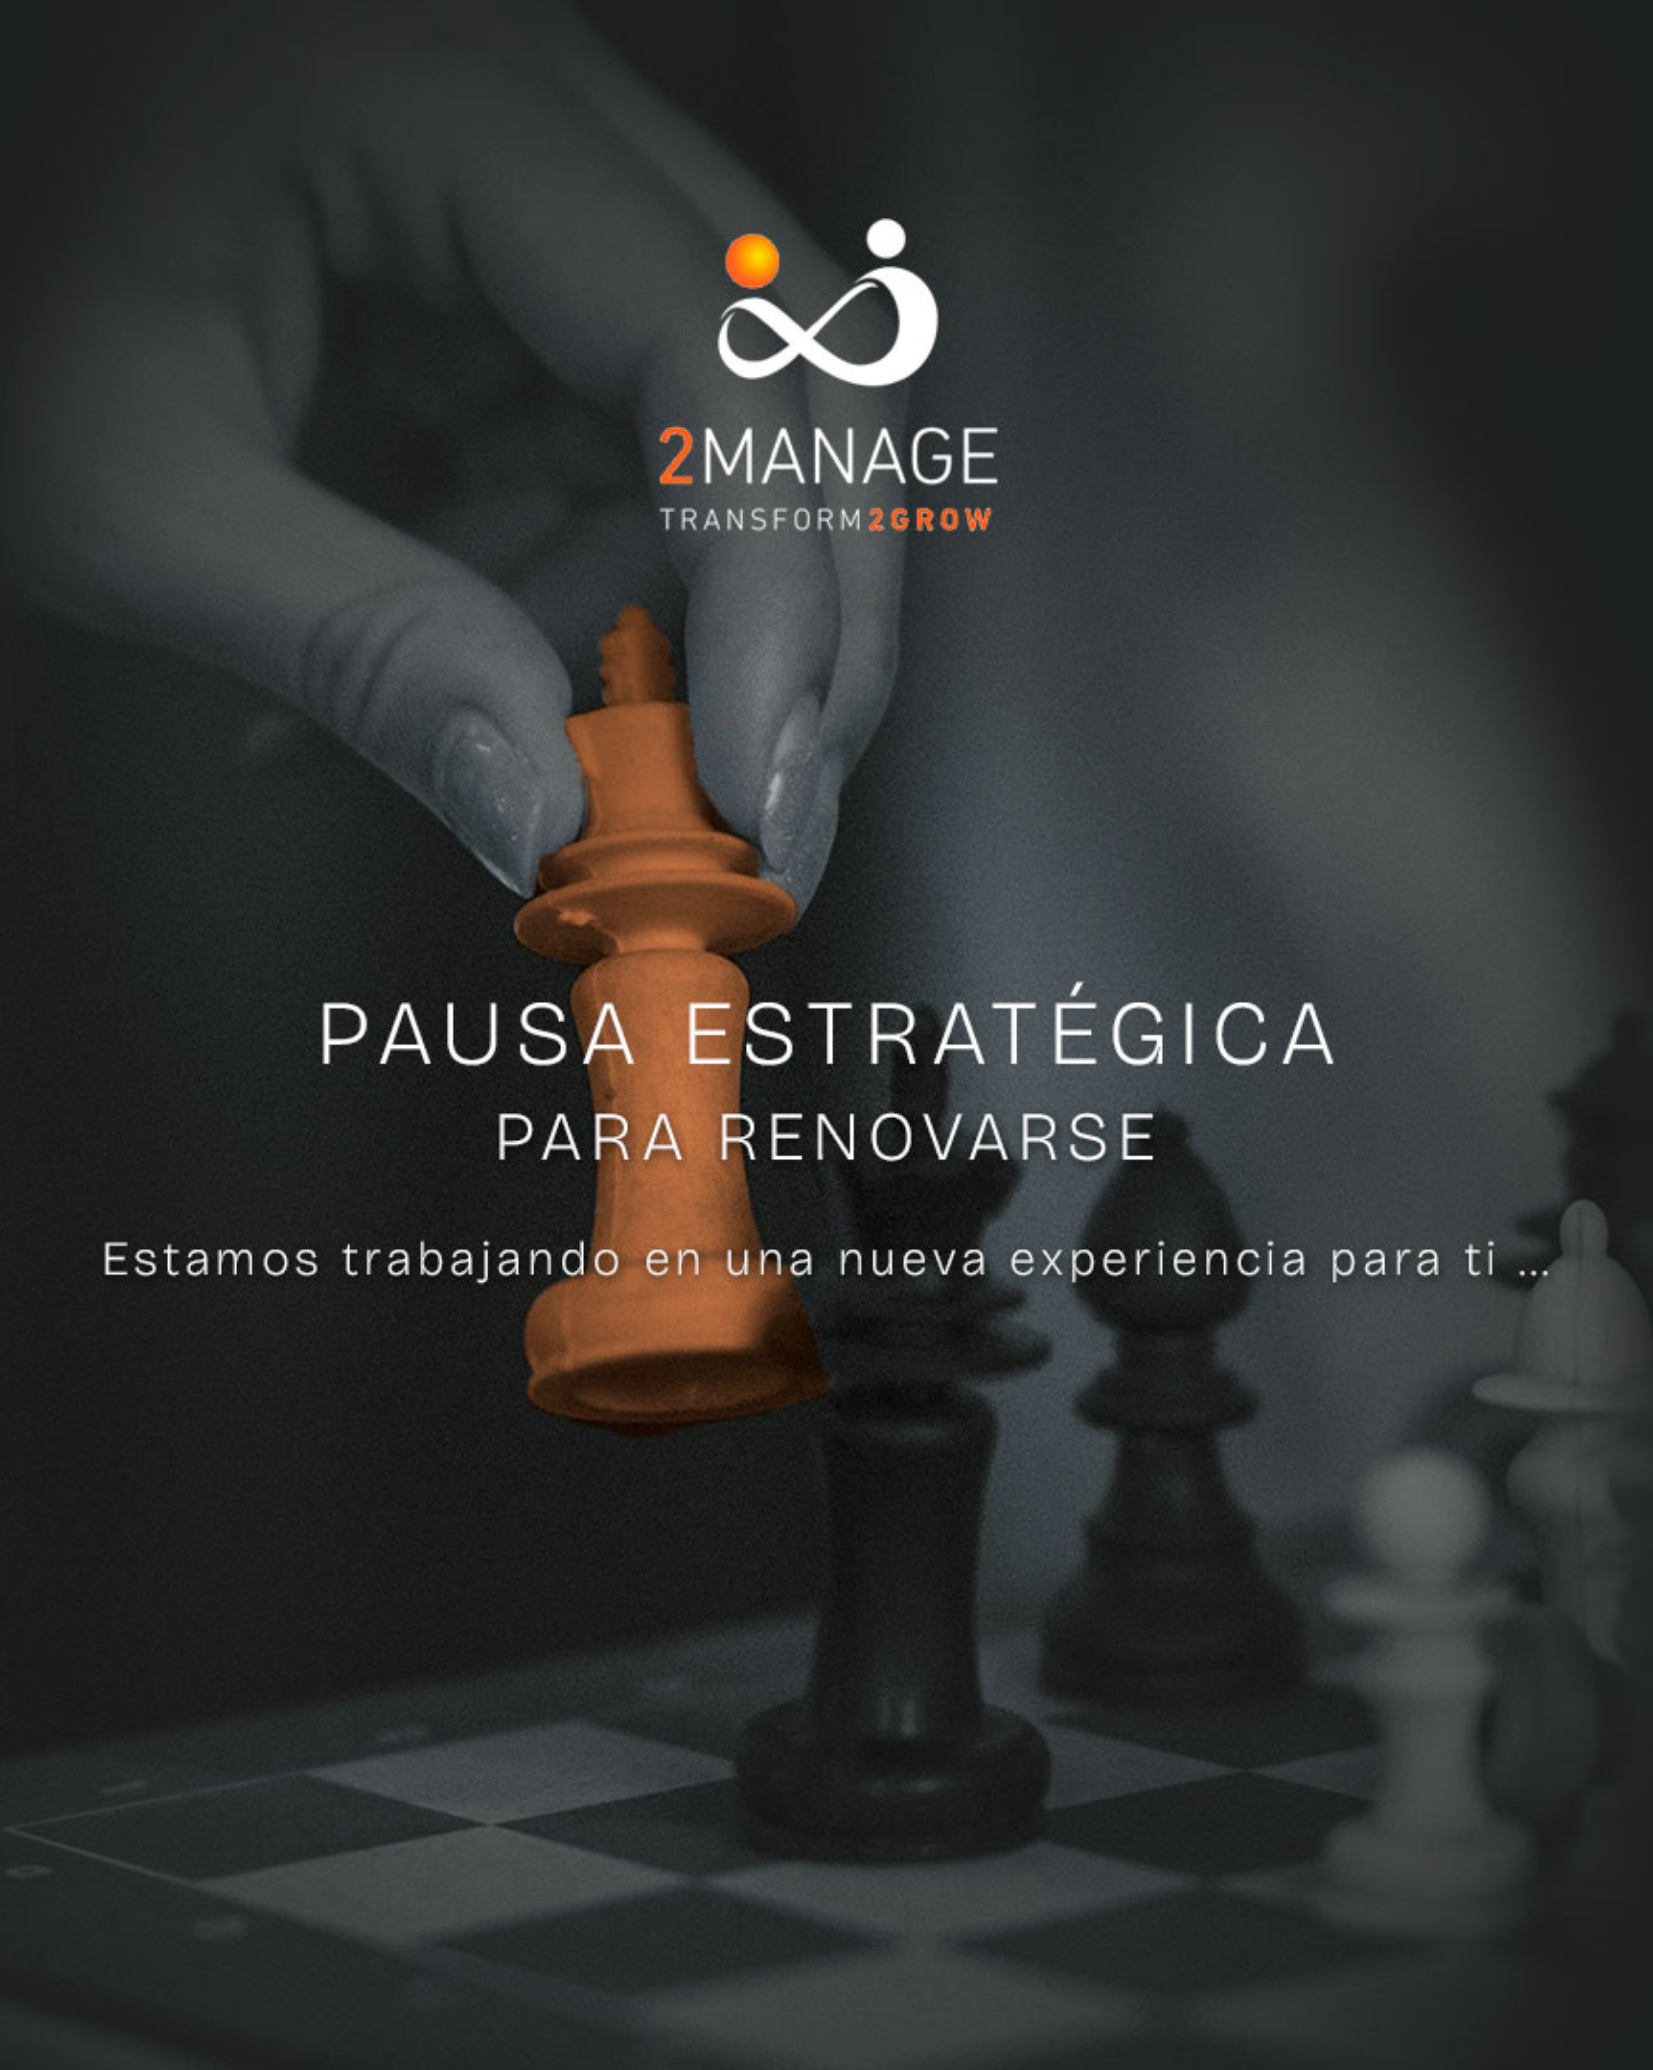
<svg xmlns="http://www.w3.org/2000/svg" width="1653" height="2070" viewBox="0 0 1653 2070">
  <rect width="100%" height="100%" fill="#ffffff"/>
  <image x="0" y="0" width="1653" height="2070" href="img1.png"/>
</svg>
